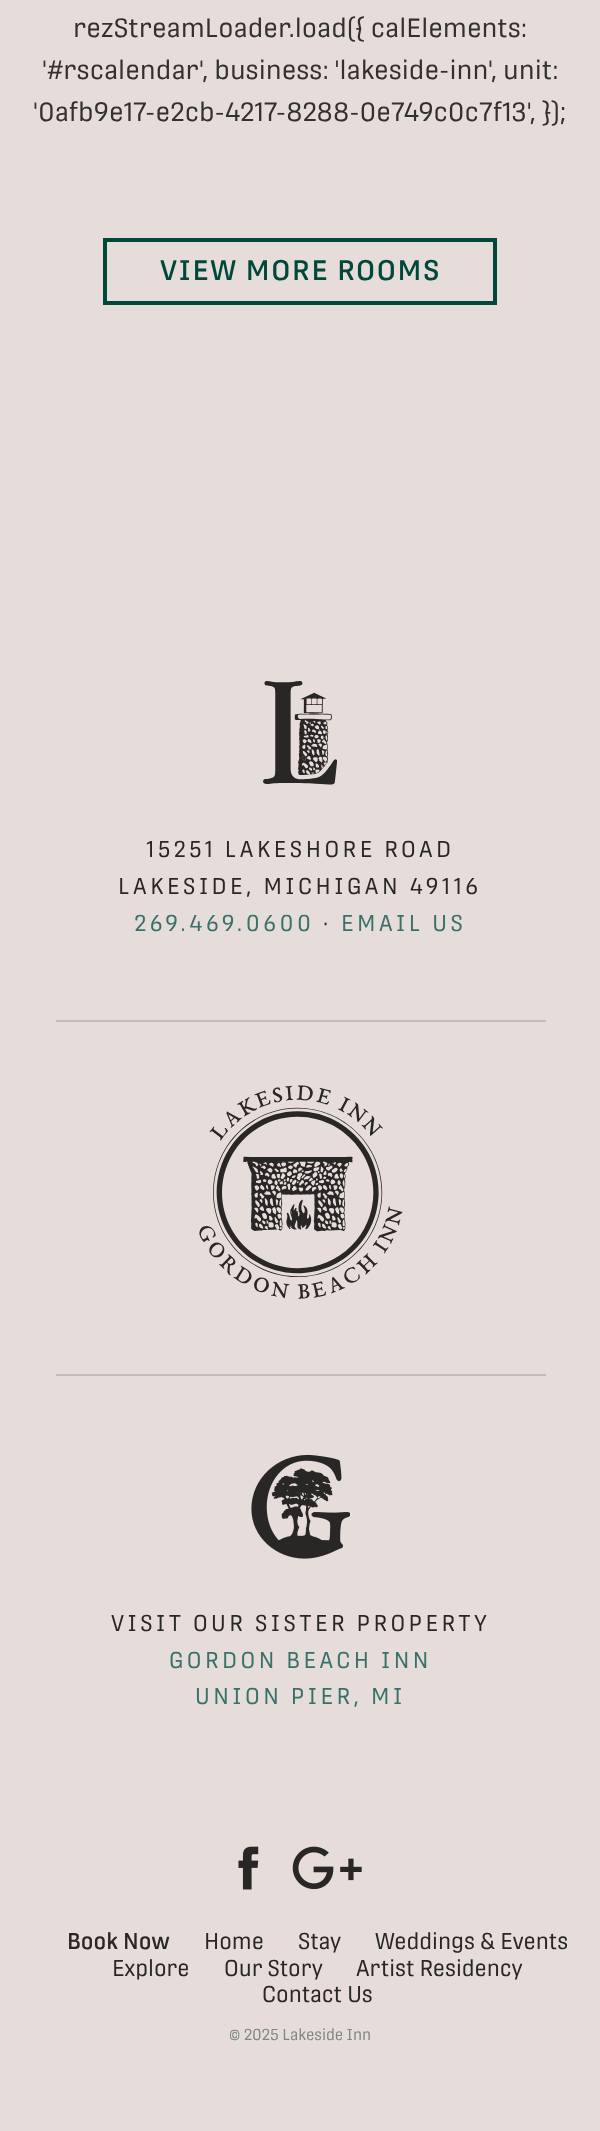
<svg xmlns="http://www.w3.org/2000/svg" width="600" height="2131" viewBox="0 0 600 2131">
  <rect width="100%" height="100%" fill="#e6ddda"/>
  <text x="73" y="37" font-family="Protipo" font-size="26.25" fill="#33312f">rezStreamLoader.load({ calElements:</text>
  <text x="42" y="79" font-family="Protipo" font-size="26.25" fill="#33312f">'#rscalendar', business: 'lakeside-inn', unit:</text>
  <text x="33" y="121" font-family="Protipo" font-size="26.25" fill="#33312f">'0afb9e17-e2cb-4217-8288-0e749c0c7f13', });</text>
  <rect x="105" y="240" width="390" height="63" fill="none" stroke="#00483a" stroke-width="4"/>
  <text x="160" y="280" font-family="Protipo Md" font-size="28" font-weight="500" letter-spacing="1.75" fill="#00483a">VIEW MORE ROOMS</text>
  <image x="263" y="681" width="74" height="104" href="img1.png"/>
  <text x="146" y="857" font-family="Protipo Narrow" font-size="22.75" letter-spacing="3.5" fill="#292726">15251 LAKESHORE ROAD</text>
  <text x="118" y="894" font-family="Protipo Narrow" font-size="22.75" letter-spacing="3.5" fill="#292726">LAKESIDE, MICHIGAN 49116</text>
  <text x="134" y="931" font-family="Protipo Narrow" font-size="22.75" letter-spacing="3.5" fill="#377167">269.469.0600</text>
  <text x="323" y="931" font-family="Protipo Narrow" font-size="22.75" letter-spacing="3.5" fill="#292726">·</text>
  <text x="341" y="931" font-family="Protipo Narrow" font-size="22.75" letter-spacing="3.5" fill="#377167">EMAIL US</text>
  <rect x="56" y="1020" width="490" height="2" fill="#c4bcba"/>
  <rect x="56" y="1374" width="490" height="2" fill="#c4bcba"/>
  <image x="199" y="1085" width="204" height="214" href="img2.png"/>
  <image x="251" y="1454" width="99" height="105" href="img3.png"/>
  <text x="111" y="1631" font-family="Protipo Narrow" font-size="22.75" letter-spacing="3.5" fill="#292726">VISIT OUR SISTER PROPERTY</text>
  <text x="169" y="1668" font-family="Protipo Narrow" font-size="22.75" letter-spacing="3.5" fill="#377167">GORDON BEACH INN</text>
  <text x="195" y="1704" font-family="Protipo Narrow" font-size="22.75" letter-spacing="3.5" fill="#377167">UNION PIER, MI</text>
  <image x="238" y="1846" width="21" height="44" href="img4.png"/>
  <image x="292" y="1846" width="70" height="44" href="img5.png"/>
  <text x="67" y="1949" font-family="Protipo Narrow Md" font-size="22.75" font-weight="500" fill="#292726">Book Now</text>
  <text x="204" y="1949" font-family="Protipo Narrow" font-size="22.75" fill="#292726">Home</text>
  <text x="298" y="1949" font-family="Protipo Narrow" font-size="22.75" fill="#292726">Stay</text>
  <text x="375" y="1949" font-family="Protipo Narrow" font-size="22.75" fill="#292726">Weddings &amp; Events</text>
  <text x="112" y="1976" font-family="Protipo Narrow" font-size="22.75" fill="#292726">Explore</text>
  <text x="224" y="1976" font-family="Protipo Narrow" font-size="22.75" fill="#292726">Our Story</text>
  <text x="356" y="1976" font-family="Protipo Narrow" font-size="22.75" fill="#292726">Artist Residency</text>
  <text x="262" y="2002" font-family="Protipo Narrow" font-size="22.75" fill="#292726">Contact Us</text>
  <text x="229" y="2040" font-family="Protipo Narrow" font-size="15.75" fill="#808685">© 2025 Lakeside Inn</text>
</svg>
